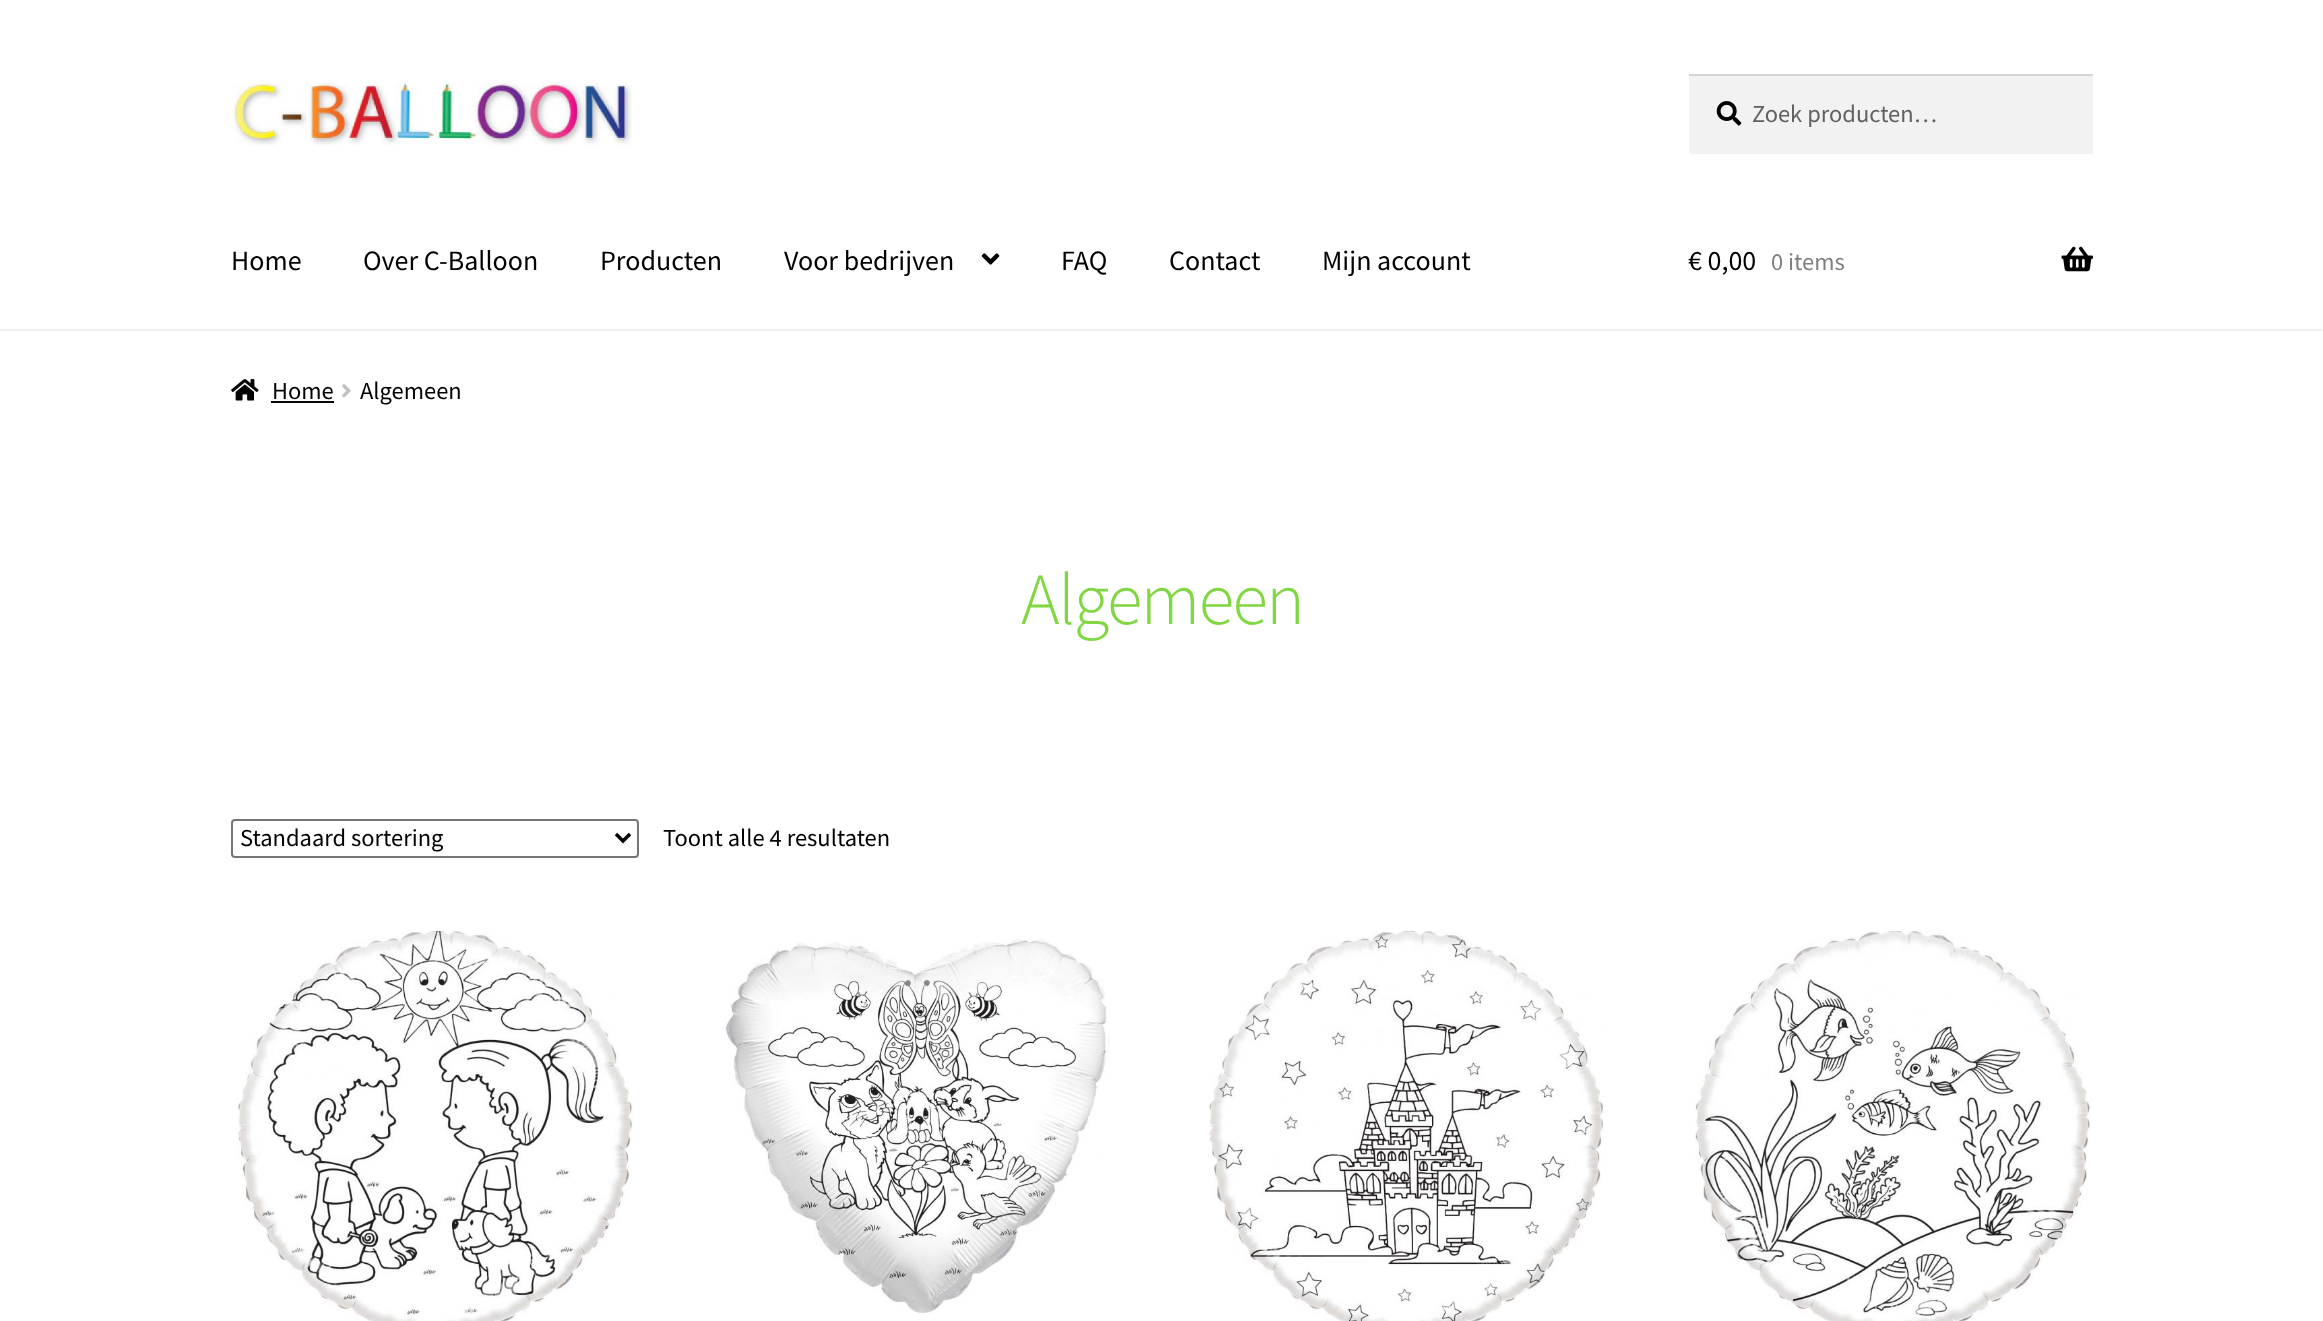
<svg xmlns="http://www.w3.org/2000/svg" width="2323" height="1321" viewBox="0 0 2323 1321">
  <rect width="100%" height="100%" fill="#ffffff"/>
  <rect x="0" y="329" width="2323" height="2" fill="#f0f0f0"/>
  <image x="231" y="80" width="401" height="66" href="img1.png"/>
  <rect x="1689" y="76" width="404" height="78" fill="#f2f2f2"/>
  <image x="1716" y="101" width="26" height="25" href="img2.png"/>
  <rect x="1689" y="74" width="404" height="2" fill="#d4d4d4"/>
  <text x="1752" y="122" font-family="Source Sans Pro" font-size="24.5" fill="#616161">Zoek producten…</text>
  <text x="231" y="270" font-family="Source Sans Pro" font-size="28" fill="#000000">Home</text>
  <text x="363" y="270" font-family="Source Sans Pro" font-size="28" fill="#000000">Over C-Balloon</text>
  <text x="600" y="270" font-family="Source Sans Pro" font-size="28" fill="#000000">Producten</text>
  <text x="784" y="270" font-family="Source Sans Pro" font-size="28" fill="#000000">Voor bedrijven</text>
  <image x="981" y="253" width="19" height="12" href="img3.png"/>
  <text x="1061" y="270" font-family="Source Sans Pro" font-size="28" fill="#000000">FAQ</text>
  <text x="1169" y="270" font-family="Source Sans Pro" font-size="28" fill="#000000">Contact</text>
  <text x="1322" y="270" font-family="Source Sans Pro" font-size="28" fill="#000000">Mijn account</text>
  <text x="1688" y="270" font-family="Source Sans Pro" font-size="28" fill="#000000">€ 0,00</text>
  <text x="1771" y="270" font-family="Source Sans Pro" font-size="24.5" fill="#808080">0 items</text>
  <image x="2061" y="246" width="32" height="26" href="img4.png"/>
  <image x="231" y="379" width="28" height="22" href="img5.png"/>
  <text x="272" y="399" font-family="Source Sans Pro" font-size="24.5" fill="#000000">Home</text>
  <rect x="271" y="401" width="63" height="2" fill="#050505"/>
  <image x="342" y="384" width="9" height="14" href="img6.png"/>
  <text x="360" y="399" font-family="Source Sans Pro" font-size="24.5" fill="#000000">Algemeen</text>
  <text x="1021" y="624" font-family="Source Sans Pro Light" font-size="73.5" font-weight="300" letter-spacing="-1.75" fill="#81d742">Algemeen</text>
  <rect x="232" y="820" width="406" height="37" rx="3" fill="none" stroke="#767676" stroke-width="2"/>
  <path d="M616 834L623 841L630 834" fill="none" stroke="#000000" stroke-width="3.5"/>
  <text x="240" y="846" font-family="Source Sans Pro" font-size="24.5" fill="#000000">Standaard sortering</text>
  <text x="663" y="846" font-family="Source Sans Pro" font-size="24.5" fill="#000000">Toont alle 4 resultaten</text>
  <image x="236" y="931" width="398" height="390" href="img7.png"/>
  <image x="725" y="939" width="385" height="375" href="img8.png"/>
  <image x="1208" y="931" width="398" height="390" href="img9.png"/>
  <image x="1694" y="931" width="397" height="390" href="img10.png"/>
</svg>
